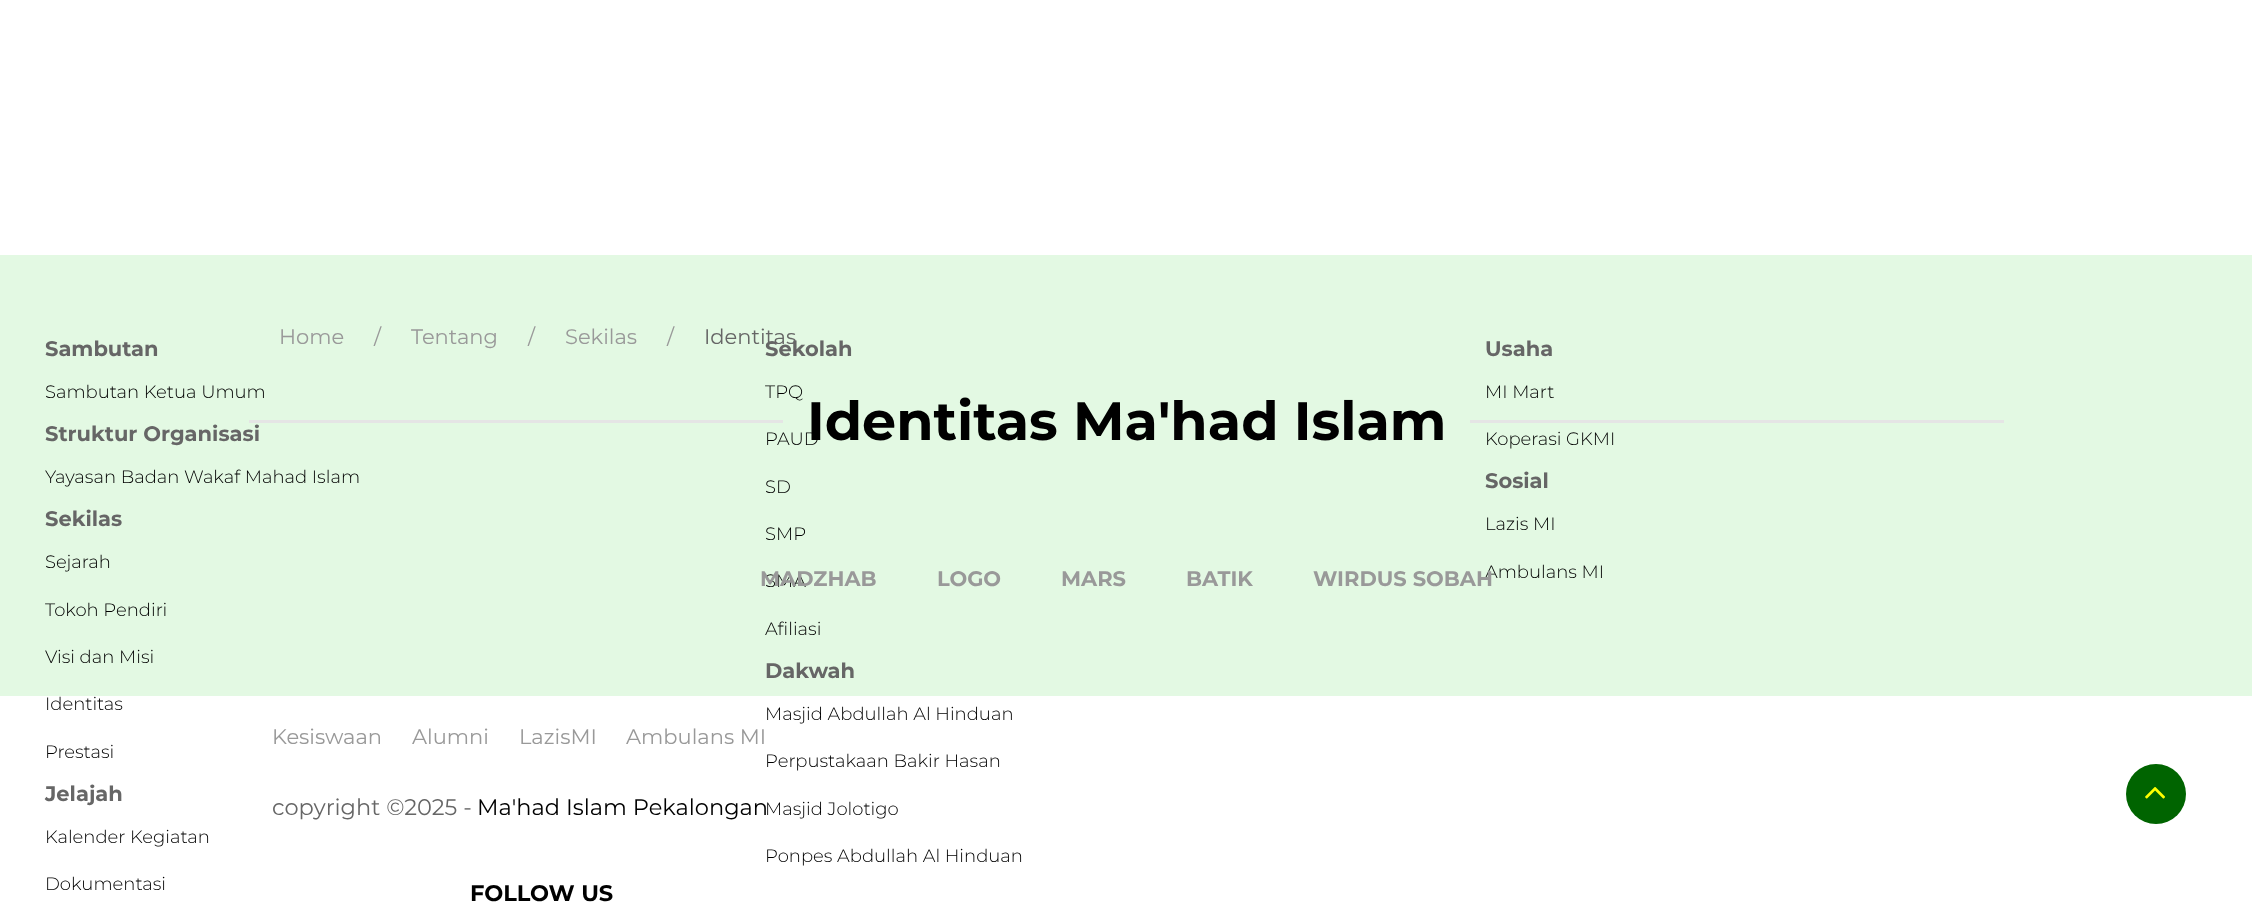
<svg xmlns="http://www.w3.org/2000/svg" width="2252" height="914" viewBox="0 0 2252 914">
  <rect width="100%" height="100%" fill="#ffffff"/>
  <rect x="0" y="255" width="2252" height="441" fill="#e3f9e3"/>
  <text x="279" y="344" font-family="Montserrat" font-size="21" fill="#999999">Home</text>
  <text x="374" y="344" font-family="Montserrat" font-size="21" fill="#999999">/</text>
  <text x="411" y="344" font-family="Montserrat" font-size="21" fill="#999999">Tentang</text>
  <text x="528" y="344" font-family="Montserrat" font-size="21" fill="#999999">/</text>
  <text x="565" y="344" font-family="Montserrat" font-size="21" fill="#999999">Sekilas</text>
  <text x="667" y="344" font-family="Montserrat" font-size="21" fill="#999999">/</text>
  <text x="704" y="344" font-family="Montserrat" font-size="21" fill="#666666">Identitas</text>
  <rect x="249" y="420" width="534" height="3" fill="#e5e5e5"/>
  <text x="765" y="445" font-family="Montserrat" font-size="18" font-weight="300" fill="#000000">PAUD</text>
  <text x="807" y="440" font-family="Montserrat" font-size="54" font-weight="bold" fill="#000000">Identitas Ma'had Islam</text>
  <rect x="1470" y="420" width="534" height="3" fill="#e5e5e5"/>
  <text x="765" y="587" font-family="Montserrat" font-size="18" font-weight="300" fill="#000000">SMA</text>
  <text x="760" y="586" font-family="Montserrat" font-size="21" font-weight="bold" fill="#999999">MADZHAB</text>
  <text x="937" y="586" font-family="Montserrat" font-size="21" font-weight="bold" fill="#999999">LOGO</text>
  <text x="1061" y="586" font-family="Montserrat" font-size="21" font-weight="bold" fill="#999999">MARS</text>
  <text x="1186" y="586" font-family="Montserrat" font-size="21" font-weight="bold" fill="#999999">BATIK</text>
  <text x="1485" y="578" font-family="Montserrat" font-size="18" font-weight="300" fill="#000000">Ambulans MI</text>
  <text x="1313" y="586" font-family="Montserrat" font-size="21" font-weight="bold" fill="#999999">WIRDUS SOBAH</text>
  <text x="45" y="356" font-family="Montserrat" font-size="21" font-weight="bold" fill="#666666">Sambutan</text>
  <text x="45" y="398" font-family="Montserrat" font-size="18" font-weight="300" fill="#000000">Sambutan Ketua Umum</text>
  <text x="45" y="441" font-family="Montserrat" font-size="21" font-weight="bold" fill="#666666">Struktur Organisasi</text>
  <text x="45" y="483" font-family="Montserrat" font-size="18" font-weight="300" fill="#000000">Yayasan Badan Wakaf Mahad Islam</text>
  <text x="45" y="526" font-family="Montserrat" font-size="21" font-weight="bold" fill="#666666">Sekilas</text>
  <text x="45" y="568" font-family="Montserrat" font-size="18" font-weight="300" fill="#000000">Sejarah</text>
  <text x="45" y="616" font-family="Montserrat" font-size="18" font-weight="300" fill="#000000">Tokoh Pendiri</text>
  <text x="45" y="663" font-family="Montserrat" font-size="18" font-weight="300" fill="#000000">Visi dan Misi</text>
  <text x="45" y="710" font-family="Montserrat" font-size="18" font-weight="300" fill="#000000">Identitas</text>
  <text x="45" y="758" font-family="Montserrat" font-size="18" font-weight="300" fill="#000000">Prestasi</text>
  <text x="45" y="801" font-family="Montserrat" font-size="21" font-weight="bold" fill="#666666">Jelajah</text>
  <text x="45" y="843" font-family="Montserrat" font-size="18" font-weight="300" fill="#000000">Kalender Kegiatan</text>
  <text x="45" y="890" font-family="Montserrat" font-size="18" font-weight="300" fill="#000000">Dokumentasi</text>
  <text x="765" y="356" font-family="Montserrat" font-size="21" font-weight="bold" fill="#666666">Sekolah</text>
  <text x="765" y="398" font-family="Montserrat" font-size="18" font-weight="300" fill="#000000">TPQ</text>
  <text x="765" y="493" font-family="Montserrat" font-size="18" font-weight="300" fill="#000000">SD</text>
  <text x="765" y="540" font-family="Montserrat" font-size="18" font-weight="300" fill="#000000">SMP</text>
  <text x="765" y="635" font-family="Montserrat" font-size="18" font-weight="300" fill="#000000">Afiliasi</text>
  <text x="765" y="678" font-family="Montserrat" font-size="21" font-weight="bold" fill="#666666">Dakwah</text>
  <text x="765" y="720" font-family="Montserrat" font-size="18" font-weight="300" fill="#000000">Masjid Abdullah Al Hinduan</text>
  <text x="765" y="767" font-family="Montserrat" font-size="18" font-weight="300" fill="#000000">Perpustakaan Bakir Hasan</text>
  <text x="765" y="815" font-family="Montserrat" font-size="18" font-weight="300" fill="#000000">Masjid Jolotigo</text>
  <text x="765" y="862" font-family="Montserrat" font-size="18" font-weight="300" fill="#000000">Ponpes Abdullah Al Hinduan</text>
  <text x="1485" y="356" font-family="Montserrat" font-size="21" font-weight="bold" fill="#666666">Usaha</text>
  <text x="1485" y="398" font-family="Montserrat" font-size="18" font-weight="300" fill="#000000">MI Mart</text>
  <text x="1485" y="445" font-family="Montserrat" font-size="18" font-weight="300" fill="#000000">Koperasi GKMI</text>
  <text x="1485" y="488" font-family="Montserrat" font-size="21" font-weight="bold" fill="#666666">Sosial</text>
  <text x="1485" y="530" font-family="Montserrat" font-size="18" font-weight="300" fill="#000000">Lazis MI</text>
  <text x="272" y="744" font-family="Montserrat" font-size="21" fill="#999999">Kesiswaan</text>
  <text x="412" y="744" font-family="Montserrat" font-size="21" fill="#999999">Alumni</text>
  <text x="519" y="744" font-family="Montserrat" font-size="21" fill="#999999">LazisMI</text>
  <text x="626" y="744" font-family="Montserrat" font-size="21" fill="#999999">Ambulans MI</text>
  <text x="272" y="815" font-family="Montserrat" font-size="22.5" fill="#666666">copyright ©2025 -</text>
  <text x="477" y="815" font-family="Montserrat" font-size="22.5" fill="#000000">Ma'had Islam Pekalongan</text>
  <text x="470" y="901" font-family="Montserrat" font-size="22.5" font-weight="bold" fill="#000000">FOLLOW US</text>
  <circle cx="2156" cy="794" r="30" fill="#006400"/>
  <image x="2145" y="787" width="20" height="12" href="img1.png"/>
</svg>
